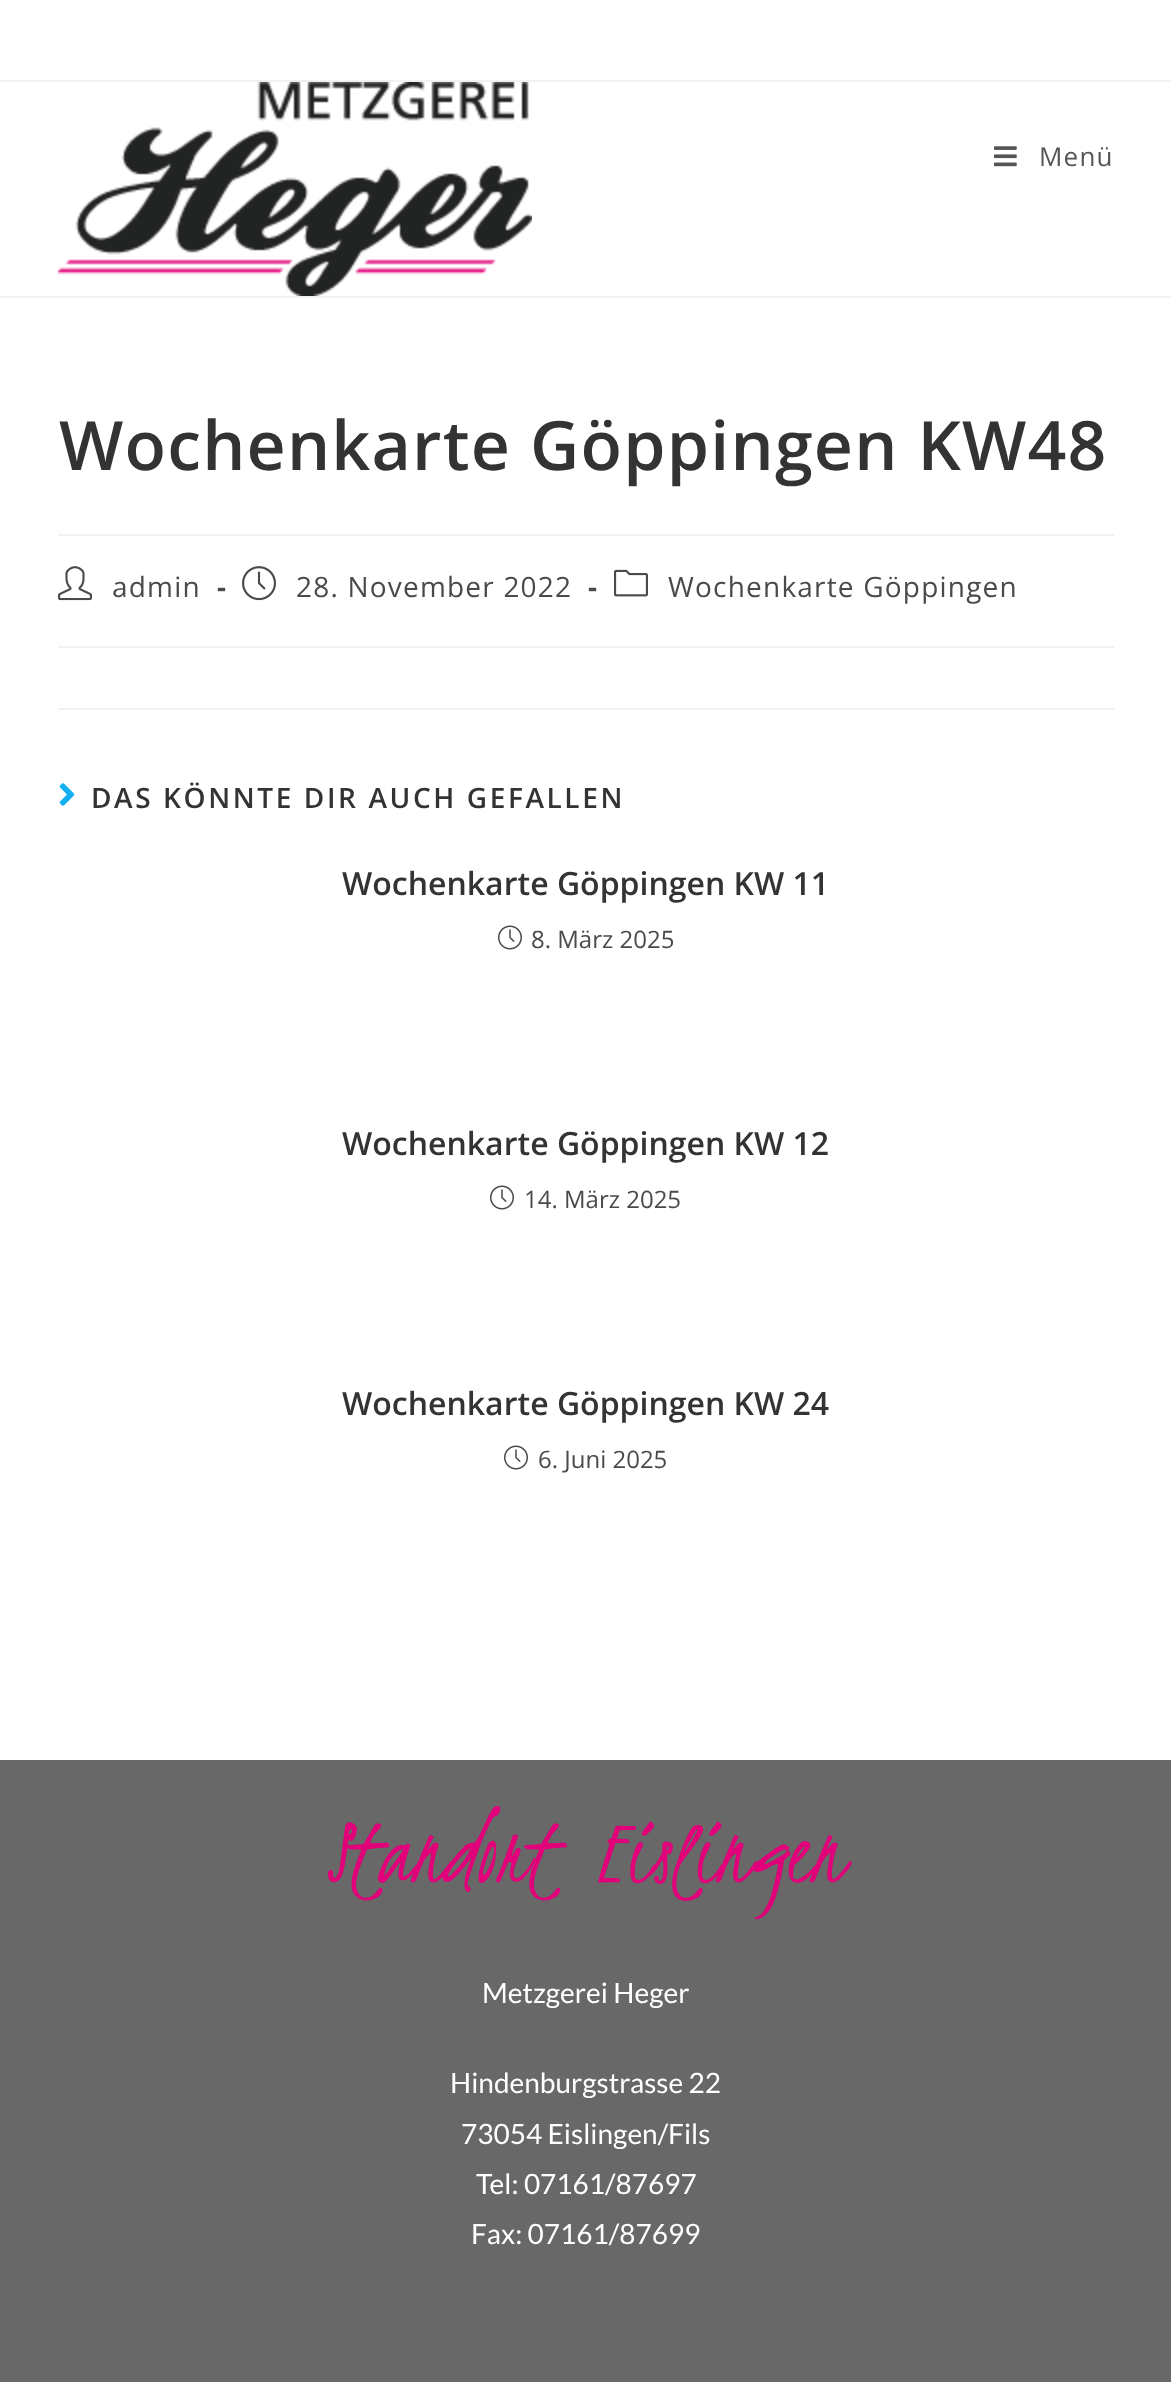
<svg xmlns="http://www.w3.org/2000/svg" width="1171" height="2382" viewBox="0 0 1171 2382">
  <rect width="100%" height="100%" fill="#ffffff"/>
  <rect x="0" y="80" width="1171" height="2" fill="#f1f1f1"/>
  <rect x="0" y="296" width="1171" height="2" fill="#f1f1f1"/>
  <image x="58" y="82" width="474" height="214" href="img1.png"/>
  <image x="994" y="146" width="23" height="21" href="img2.png"/>
  <text x="1039" y="166" font-family="Open Sans" font-size="26" letter-spacing="1.2" fill="#555555">Menü</text>
  <rect x="58" y="534" width="1056" height="2" fill="#f1f1f1"/>
  <text x="59" y="470" font-family="Open Sans" font-size="68" font-weight="600" letter-spacing="1.2" fill="#333333">Wochenkarte Göppingen KW48</text>
  <rect x="58" y="646" width="1056" height="2" fill="#f1f1f1"/>
  <image x="58" y="566" width="34" height="35" href="img3.png"/>
  <text x="112" y="597" font-family="Open Sans" font-size="28" letter-spacing="1.2" fill="#4a4a4a">admin</text>
  <text x="217" y="597" font-family="Open Sans" font-size="28" font-weight="bold" letter-spacing="1.2" fill="#4a4a4a">-</text>
  <image x="242" y="566" width="34" height="35" href="img4.png"/>
  <text x="296" y="597" font-family="Open Sans" font-size="28" letter-spacing="1.2" fill="#4a4a4a">28. November 2022</text>
  <text x="588" y="597" font-family="Open Sans" font-size="28" font-weight="bold" letter-spacing="1.2" fill="#4a4a4a">-</text>
  <image x="614" y="569" width="34" height="28" href="img5.png"/>
  <text x="668" y="597" font-family="Open Sans" font-size="28" letter-spacing="1.2" fill="#4a4a4a">Wochenkarte Göppingen</text>
  <rect x="58" y="708" width="1056" height="2" fill="#f1f1f1"/>
  <image x="59" y="783" width="16" height="23" href="img6.png"/>
  <text x="91" y="808" font-family="Open Sans" font-size="28" font-weight="600" letter-spacing="2.6" fill="#333333">DAS KÖNNTE DIR AUCH GEFALLEN</text>
  <text x="342" y="895" font-family="Open Sans" font-size="32" font-weight="600" fill="#333333">Wochenkarte Göppingen KW 11</text>
  <image x="498" y="925" width="24" height="25" href="img7.png"/>
  <text x="531" y="948" font-family="Open Sans" font-size="24" fill="#4a4a4a">8. März 2025</text>
  <text x="342" y="1155" font-family="Open Sans" font-size="32" font-weight="600" fill="#333333">Wochenkarte Göppingen KW 12</text>
  <image x="490" y="1185" width="24" height="25" href="img7.png"/>
  <text x="524" y="1208" font-family="Open Sans" font-size="24" fill="#4a4a4a">14. März 2025</text>
  <text x="342" y="1415" font-family="Open Sans" font-size="32" font-weight="600" fill="#333333">Wochenkarte Göppingen KW 24</text>
  <image x="504" y="1445" width="24" height="25" href="img7.png"/>
  <text x="538" y="1468" font-family="Open Sans" font-size="24" fill="#4a4a4a">6. Juni 2025</text>
  <rect x="0" y="1760" width="1171" height="622" fill="#686868"/>
  <text x="328" y="1881" word-spacing="16" font-family="Kristi" font-size="100" letter-spacing="1" fill="#e1007a">Standort Eislingen</text>
  <text x="482" y="2003" font-family="Lato" font-size="28" fill="#ffffff">Metzgerei Heger</text>
  <text x="450" y="2093" font-family="Lato" font-size="28" fill="#ffffff">Hindenburgstrasse 22</text>
  <text x="461" y="2144" font-family="Lato" font-size="28" fill="#ffffff">73054 Eislingen/Fils</text>
  <text x="476" y="2194" font-family="Lato" font-size="28" fill="#ffffff">Tel: 07161/87697</text>
  <text x="471" y="2244" font-family="Lato" font-size="28" fill="#ffffff">Fax: 07161/87699</text>
</svg>
